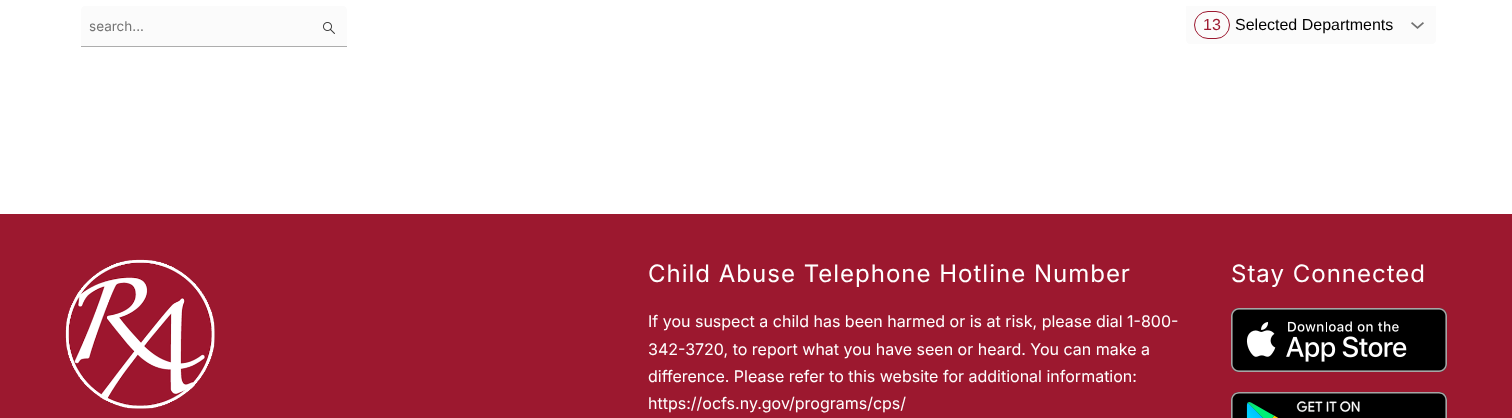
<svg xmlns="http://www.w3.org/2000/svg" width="1512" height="418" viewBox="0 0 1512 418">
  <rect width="100%" height="100%" fill="#ffffff"/>
  <path d="M85 6H343C345 6 347 8 347 10V47H81V10C81 8 83 6 85 6Z" fill="#fbfbfb"/>
  <rect x="81" y="46" width="266" height="1" fill="#adadad"/>
  <text x="89" y="31" font-family="Inter" font-size="13.5" fill="#747474">search...</text>
  <image x="323" y="22" width="12" height="12" href="img1.png"/>
  <path d="M1186 6H1436V40C1436 42 1434 44 1432 44H1190C1188 44 1186 42 1186 40Z" fill="#fbfbfb"/>
  <image x="1411" y="22" width="13" height="7" href="img2.png"/>
  <rect x="1194.5" y="11.5" width="35" height="27" rx="13.5" fill="none" stroke="#9c182f"/>
  <text x="1203" y="30" font-family="Liberation Sans" font-size="16" fill="#9c182f">13</text>
  <text x="1235" y="30" font-family="Liberation Sans" font-size="16" fill="#000000">Selected Departments</text>
  <rect x="0" y="214" width="1512" height="204" fill="#9c182f"/>
  <image x="65" y="259" width="150" height="150" href="img3.png"/>
  <text x="648" y="282" font-family="Inter" font-size="24" letter-spacing="1" fill="#ffffff">Child Abuse Telephone Hotline Number</text>
  <text x="648" y="327" font-family="Inter" font-size="16" fill="#ffffff">If you suspect a child has been harmed or is at risk, please dial 1-800-</text>
  <text x="648" y="355" font-family="Inter" font-size="16" fill="#ffffff">342-3720, to report what you have seen or heard. You can make a</text>
  <text x="648" y="382" font-family="Inter" font-size="16" fill="#ffffff">difference. Please refer to this website for additional information:</text>
  <text x="648" y="409" font-family="Inter" font-size="16" fill="#ffffff">https://ocfs.ny.gov/programs/cps/</text>
  <text x="1231" y="282" font-family="Inter" font-size="24" letter-spacing="1" fill="#ffffff">Stay Connected</text>
  <image x="1231" y="308" width="216" height="64" href="img4.png"/>
  <image x="1231" y="392" width="216" height="26" href="img5.png"/>
</svg>
